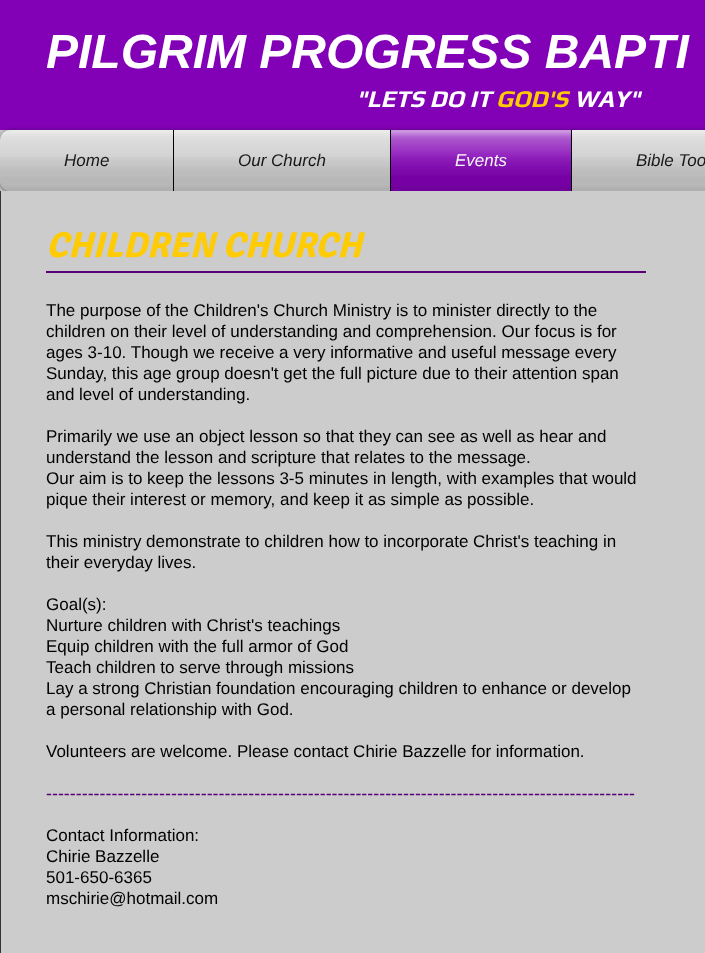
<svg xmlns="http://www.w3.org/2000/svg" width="705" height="953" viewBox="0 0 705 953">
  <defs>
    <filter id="blur1" x="-50%" y="-200%" width="200%" height="500%"><feGaussianBlur stdDeviation="2"/></filter>
  </defs>
  <rect width="100%" height="100%" fill="#333333"/>
  <rect x="0" y="0" width="705" height="130" fill="#8200b5"/>
  <text x="46" y="68" font-family="Liberation Sans" font-size="48" font-weight="bold" font-style="italic" fill="#ffffff">PILGRIM PROGRESS BAPTI</text>
  <text x="356" y="107" font-family="Play" font-size="24" font-weight="bold" font-style="italic" fill="#ffffff">"LETS DO IT</text>
  <text x="496" y="107" font-family="Play" font-size="24" font-weight="bold" font-style="italic" fill="#ffcb05">GOD'S</text>
  <text x="574" y="107" font-family="Play" font-size="24" font-weight="bold" font-style="italic" fill="#ffffff">WAY"</text>
  <rect x="0" y="130" width="10" height="61" fill="#cccccc"/>
  <rect x="0" y="131" width="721" height="61" rx="10" fill="#000000" fill-opacity="0.6" filter="url(#blur1)"/>
  <image x="0" y="130" width="10" height="10" href="img1.png"/>
  <image x="0" y="181" width="10" height="10" href="img2.png"/>
  <path d="M10 130H173V191H10C4.5 191 0 186.5 0 181V140C0 134.5 4.5 130 10 130Z" fill="#cccccc"/>
  <text x="64" y="166" font-family="Liberation Sans" font-size="17" font-style="italic" fill="#000000">Home</text>
  <image x="0" y="130" width="173" height="37" href="img3.png"/>
  <image x="0" y="157" width="173" height="34" href="img4.png"/>
  <rect x="174" y="130" width="216" height="61" fill="#cccccc"/>
  <rect x="173" y="130" width="1" height="61" fill="#000000"/>
  <text x="238" y="166" font-family="Liberation Sans" font-size="17" font-style="italic" fill="#000000">Our Church</text>
  <image x="174" y="130" width="216" height="37" href="img5.png"/>
  <image x="174" y="157" width="216" height="34" href="img6.png"/>
  <rect x="391" y="130" width="180" height="61" fill="#8200b5"/>
  <rect x="390" y="130" width="1" height="61" fill="#000000"/>
  <text x="455" y="166" font-family="Liberation Sans" font-size="17" font-style="italic" fill="#ffffff">Events</text>
  <image x="391" y="130" width="180" height="46" href="img7.png"/>
  <image x="391" y="157" width="180" height="34" href="img8.png"/>
  <rect x="572" y="130" width="133" height="61" fill="#cccccc"/>
  <rect x="571" y="130" width="1" height="61" fill="#000000"/>
  <text x="636" y="166" font-family="Liberation Sans" font-size="17" font-style="italic" fill="#000000">Bible Too</text>
  <image x="572" y="130" width="133" height="37" href="img9.png"/>
  <image x="572" y="157" width="133" height="34" href="img10.png"/>
  <rect x="1" y="191" width="704" height="762" fill="#cccccc"/>
  <text x="46" y="257" font-family="Signika" font-size="36" font-weight="bold" font-style="italic" fill="#ffcb05">CHILDREN CHURCH</text>
  <rect x="46" y="271" width="600" height="2" fill="#570079"/>
  <text x="46" y="316" font-family="Liberation Sans" font-size="17" fill="#000000">The purpose of the Children's Church Ministry is to minister directly to the</text>
  <text x="46" y="337" font-family="Liberation Sans" font-size="17" fill="#000000">children on their level of understanding and comprehension. Our focus is for</text>
  <text x="46" y="358" font-family="Liberation Sans" font-size="17" fill="#000000">ages 3-10. Though we receive a very informative and useful message every</text>
  <text x="46" y="379" font-family="Liberation Sans" font-size="17" fill="#000000">Sunday, this age group doesn't get the full picture due to their attention span</text>
  <text x="46" y="400" font-family="Liberation Sans" font-size="17" fill="#000000">and level of understanding.</text>
  <text x="46" y="442" font-family="Liberation Sans" font-size="17" fill="#000000">Primarily we use an object lesson so that they can see as well as hear and</text>
  <text x="46" y="463" font-family="Liberation Sans" font-size="17" fill="#000000">understand the lesson and scripture that relates to the message.</text>
  <text x="46" y="484" font-family="Liberation Sans" font-size="17" fill="#000000">Our aim is to keep the lessons 3-5 minutes in length, with examples that would</text>
  <text x="46" y="505" font-family="Liberation Sans" font-size="17" fill="#000000">pique their interest or memory, and keep it as simple as possible.</text>
  <text x="46" y="547" font-family="Liberation Sans" font-size="17" fill="#000000">This ministry demonstrate to children how to incorporate Christ's teaching in</text>
  <text x="46" y="568" font-family="Liberation Sans" font-size="17" fill="#000000">their everyday lives.</text>
  <text x="46" y="610" font-family="Liberation Sans" font-size="17" fill="#000000">Goal(s):</text>
  <text x="46" y="631" font-family="Liberation Sans" font-size="17" fill="#000000">Nurture children with Christ's teachings</text>
  <text x="46" y="652" font-family="Liberation Sans" font-size="17" fill="#000000">Equip children with the full armor of God</text>
  <text x="46" y="673" font-family="Liberation Sans" font-size="17" fill="#000000">Teach children to serve through missions</text>
  <text x="46" y="694" font-family="Liberation Sans" font-size="17" fill="#000000">Lay a strong Christian foundation encouraging children to enhance or develop</text>
  <text x="46" y="715" font-family="Liberation Sans" font-size="17" fill="#000000">a personal relationship with God.</text>
  <text x="46" y="757" font-family="Liberation Sans" font-size="17" fill="#000000">Volunteers are welcome. Please contact Chirie Bazzelle for information.</text>
  <text x="46" y="799" font-family="Signika" font-size="17" fill="#570079">---------------------------------------------------------------------------------------------------</text>
  <text x="46" y="841" font-family="Liberation Sans" font-size="17" fill="#000000">Contact Information:</text>
  <text x="46" y="862" font-family="Liberation Sans" font-size="17" fill="#000000">Chirie Bazzelle</text>
  <text x="46" y="883" font-family="Liberation Sans" font-size="17" fill="#000000">501-650-6365</text>
  <text x="46" y="904" font-family="Liberation Sans" font-size="17" fill="#000000">mschirie@hotmail.com</text>
</svg>
